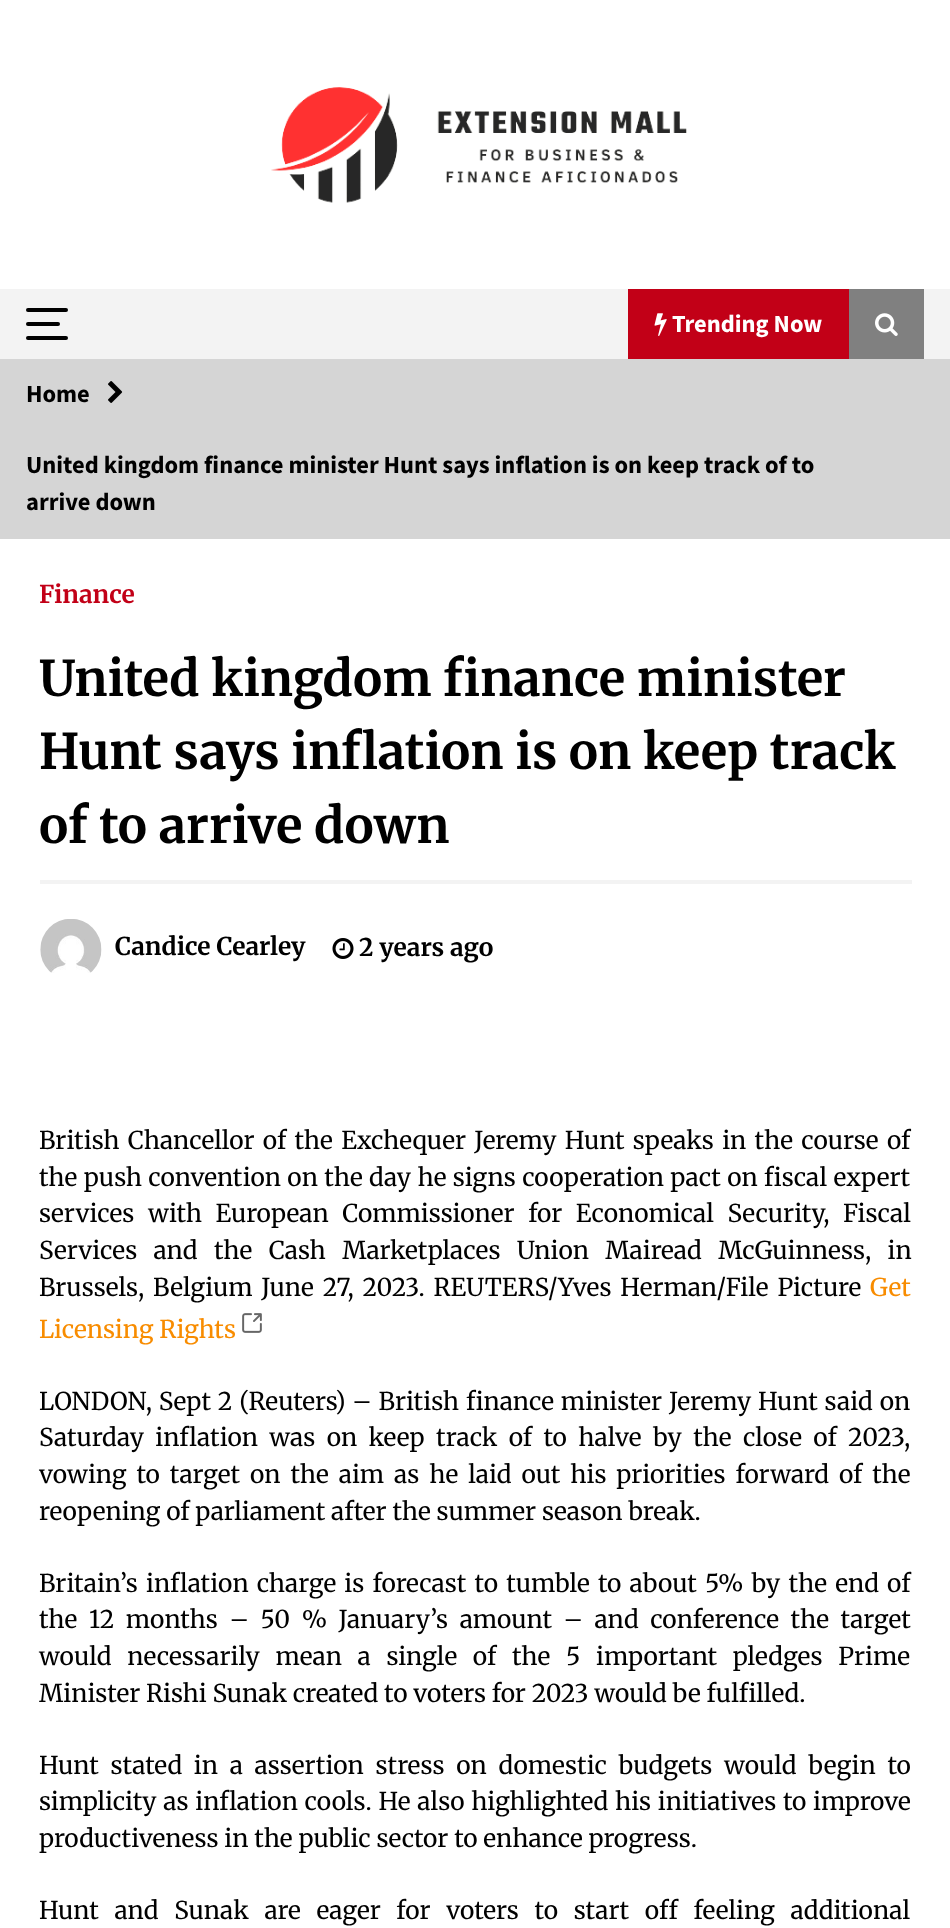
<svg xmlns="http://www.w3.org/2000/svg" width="950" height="1928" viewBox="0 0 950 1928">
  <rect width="100%" height="100%" fill="#ffffff"/>
  <image x="271" y="87" width="416" height="116" href="img1.png"/>
  <rect x="0" y="289" width="950" height="70" fill="#f3f3f3"/>
  <rect x="26" y="308" width="42" height="4" rx="2" fill="#000000"/>
  <rect x="26" y="336" width="42" height="4" rx="2" fill="#000000"/>
  <rect x="26" y="322" width="34" height="4" rx="2" fill="#000000"/>
  <rect x="628" y="289" width="221" height="70" fill="#c20017"/>
  <image x="654" y="313" width="13" height="23" href="img2.png"/>
  <text x="672" y="332" font-family="Source Sans Pro" font-size="24.5" font-weight="bold" fill="#ffffff">Trending Now</text>
  <rect x="849" y="289" width="75" height="70" fill="#808080"/>
  <image x="875" y="313" width="23" height="23" href="img3.png"/>
  <rect x="0" y="359" width="950" height="180" fill="#d5d5d5"/>
  <text x="26" y="402" font-family="Source Sans Pro" font-size="24.5" font-weight="bold" fill="#000000">Home</text>
  <image x="108" y="381" width="15" height="22" href="img4.png"/>
  <text x="26" y="473" font-family="Source Sans Pro" font-size="24.5" font-weight="bold" fill="#000000">United kingdom finance minister Hunt says inflation is on keep track of to</text>
  <text x="26" y="510" font-family="Source Sans Pro" font-size="24.5" font-weight="bold" fill="#000000">arrive down</text>
  <text x="39" y="603" font-family="Merriweather" font-size="24.5" font-weight="bold" fill="#c20017">Finance</text>
  <rect x="40" y="880" width="872" height="4" fill="#f3f3f3"/>
  <text x="39" y="696" font-family="Merriweather" font-size="49" font-weight="bold" fill="#000000">United kingdom finance minister</text>
  <text x="39" y="769" font-family="Merriweather" font-size="49" font-weight="bold" fill="#000000">Hunt says inflation is on keep track</text>
  <text x="39" y="843" font-family="Merriweather" font-size="49" font-weight="bold" fill="#000000">of to arrive down</text>
  <image x="40" y="919" width="62" height="54" href="img5.png"/>
  <text x="115" y="955" font-family="Merriweather" font-size="24.5" font-weight="bold" fill="#000000">Candice Cearley</text>
  <image x="332" y="938" width="22" height="21" href="img6.png"/>
  <text x="359" y="956" font-family="Merriweather" font-size="24.5" font-weight="bold" fill="#000000">2 years ago</text>
  <text x="39" y="1149" word-spacing="2.5" font-family="Merriweather" font-size="24.5" fill="#000000">British Chancellor of the Exchequer Jeremy Hunt speaks in the course of</text>
  <text x="39" y="1186" word-spacing="0.6" font-family="Merriweather" font-size="24.5" fill="#000000">the push convention on the day he signs cooperation pact on fiscal expert</text>
  <text x="39" y="1222" word-spacing="7.75" font-family="Merriweather" font-size="24.5" fill="#000000">services with European Commissioner for Economical Security, Fiscal</text>
  <text x="39" y="1259" word-spacing="10.5" font-family="Merriweather" font-size="24.5" fill="#000000">Services and the Cash Marketplaces Union Mairead McGuinness, in</text>
  <text x="39" y="1296" word-spacing="3" font-family="Merriweather" font-size="24.5" fill="#000000">Brussels, Belgium June 27, 2023. REUTERS/Yves Herman/File Picture</text>
  <text x="870" y="1296" font-family="Merriweather" font-size="24.5" fill="#f88c00">Get</text>
  <text x="39" y="1338" font-family="Merriweather" font-size="24.5" fill="#f88c00">Licensing Rights</text>
  <image x="242" y="1313" width="20" height="20" href="img7.png"/>
  <text x="39" y="1410" word-spacing="1" font-family="Merriweather" font-size="24.5" fill="#000000">LONDON, Sept 2 (Reuters) – British finance minister Jeremy Hunt said on</text>
  <text x="39" y="1446" word-spacing="5.6" font-family="Merriweather" font-size="24.5" fill="#000000">Saturday inflation was on keep track of to halve by the close of 2023,</text>
  <text x="39" y="1483" word-spacing="4.1" font-family="Merriweather" font-size="24.5" fill="#000000">vowing to target on the aim as he laid out his priorities forward of the</text>
  <text x="39" y="1520" font-family="Merriweather" font-size="24.5" fill="#000000">reopening of parliament after the summer season break.</text>
  <text x="39" y="1592" word-spacing="2.4" font-family="Merriweather" font-size="24.5" fill="#000000">Britain’s inflation charge is forecast to tumble to about 5% by the end of</text>
  <text x="39" y="1628" word-spacing="5.75" font-family="Merriweather" font-size="24.5" fill="#000000">the 12 months – 50 % January’s amount – and conference the target</text>
  <text x="39" y="1665" word-spacing="9.9" font-family="Merriweather" font-size="24.5" fill="#000000">would necessarily mean a single of the 5 important pledges Prime</text>
  <text x="39" y="1702" font-family="Merriweather" font-size="24.5" fill="#000000">Minister Rishi Sunak created to voters for 2023 would be fulfilled.</text>
  <text x="39" y="1774" word-spacing="5.9" font-family="Merriweather" font-size="24.5" fill="#000000">Hunt stated in a assertion stress on domestic budgets would begin to</text>
  <text x="39" y="1810" word-spacing="0.9" font-family="Merriweather" font-size="24.5" fill="#000000">simplicity as inflation cools. He also highlighted his initiatives to improve</text>
  <text x="39" y="1847" font-family="Merriweather" font-size="24.5" fill="#000000">productiveness in the public sector to enhance progress.</text>
  <text x="39" y="1919" word-spacing="9.9" font-family="Merriweather" font-size="24.5" fill="#000000">Hunt and Sunak are eager for voters to start off feeling additional</text>
</svg>
